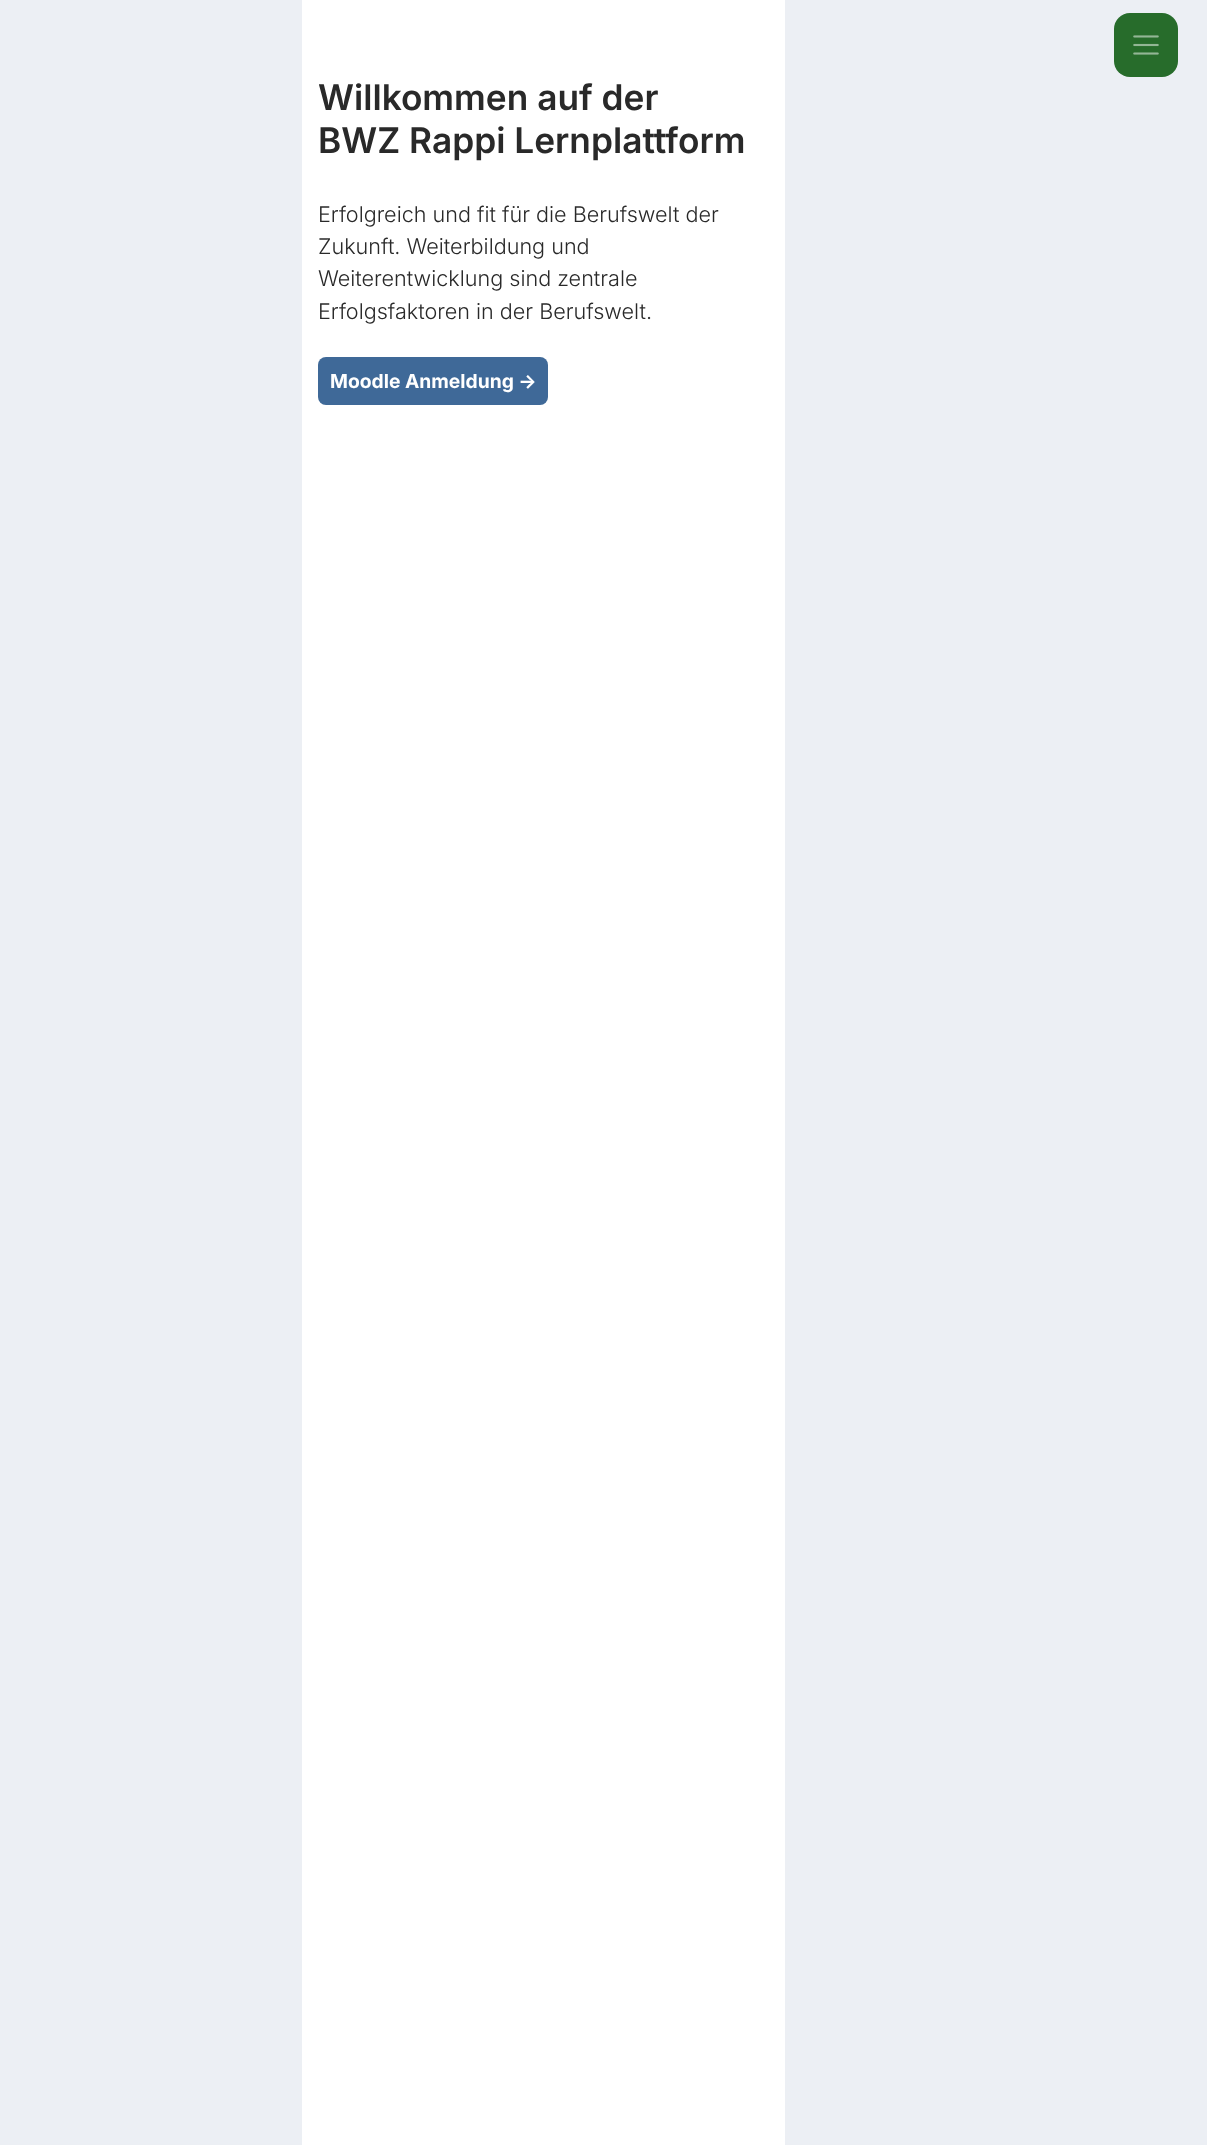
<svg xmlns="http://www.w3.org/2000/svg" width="1207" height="2145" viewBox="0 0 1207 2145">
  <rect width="100%" height="100%" fill="#eceff4"/>
  <rect x="1114" y="13" width="64" height="64" rx="16" fill="#276c2b"/>
  <image x="1133" y="35" width="26" height="20" href="img1.png"/>
  <rect x="302" y="0" width="483" height="2145" fill="#ffffff"/>
  <text x="318" y="110" font-family="Inter" font-size="35.25" font-weight="600" fill="#292929">Willkommen auf der</text>
  <text x="318" y="153" font-family="Inter" font-size="35.25" font-weight="600" fill="#292929">BWZ Rappi Lernplattform</text>
  <text x="318" y="222" font-family="Inter" font-size="21.6" font-weight="300" fill="#292929">Erfolgreich und fit für die Berufswelt der</text>
  <text x="318" y="254" font-family="Inter" font-size="21.6" font-weight="300" fill="#292929">Zukunft. Weiterbildung und</text>
  <text x="318" y="286" font-family="Inter" font-size="21.6" font-weight="300" fill="#292929">Weiterentwicklung sind zentrale</text>
  <text x="318" y="319" font-family="Inter" font-size="21.6" font-weight="300" fill="#292929">Erfolgsfaktoren in der Berufswelt.</text>
  <rect x="318" y="357" width="230" height="48" rx="8" fill="#3f6998"/>
  <text x="330" y="388" font-family="Inter" font-size="19.25" font-weight="bold" fill="#ffffff">Moodle Anmeldung →</text>
</svg>
